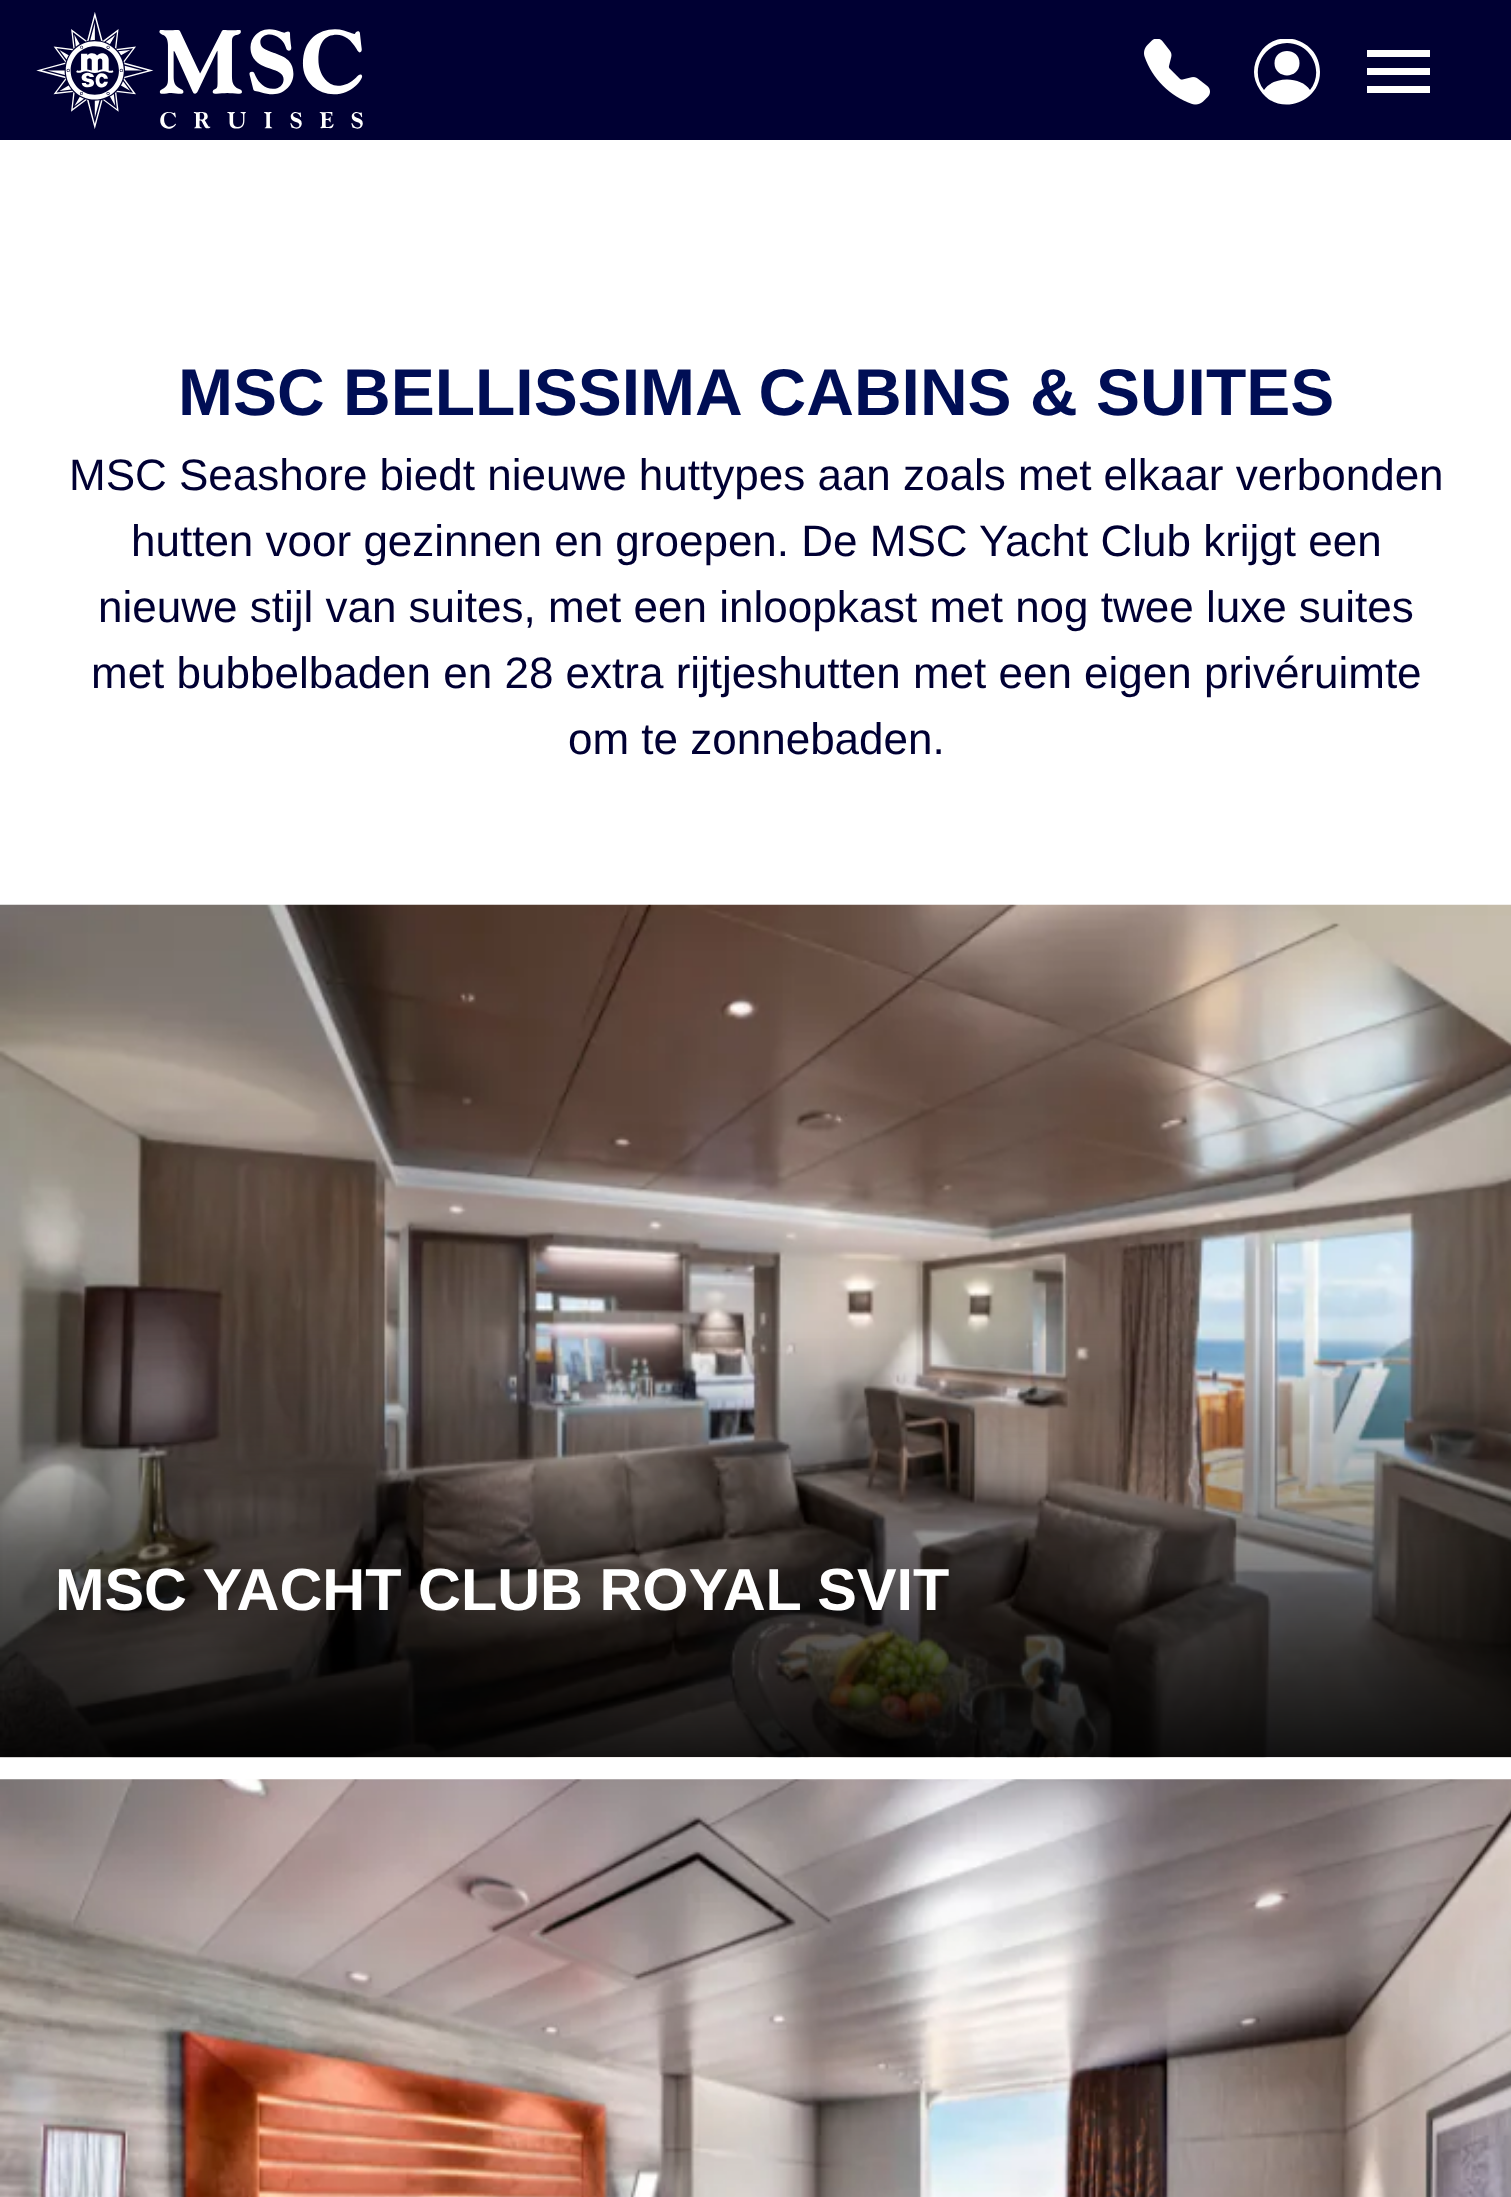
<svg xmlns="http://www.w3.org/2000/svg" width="1511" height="2197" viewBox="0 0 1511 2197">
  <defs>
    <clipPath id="clip1"><rect x="1254" y="39" width="66" height="66"/></clipPath>
  </defs>
  <rect width="100%" height="100%" fill="#ffffff"/>
  <rect x="0" y="0" width="1511" height="140" fill="#000033"/>
  <image x="36" y="12" width="327" height="117" href="img1.png"/>
  <image x="1144" y="39" width="66" height="66" href="img2.png"/>
  <path d="M1299.5 63C1299.5 79.5 1274.5 79.5 1274.5 63C1274.5 47 1299.5 47 1299.5 63Z" fill="#ffffff"/>
  <g clip-path="url(#clip1)">
    <path d="M1254 72C1254 65 1256 59 1260 53C1277 26 1320 39 1320 72C1320 104 1277 117 1260 90C1256 84 1254 78 1254 72ZM1287 43C1263 43 1249 71 1264 90C1273 76 1301 76 1310 90C1325 71 1311 43 1287 43Z" fill="#ffffff" fill-rule="evenodd"/>
  </g>
  <path d="M1367 93H1430V86H1367ZM1367 75H1430V68H1367ZM1367 50V57H1430V50Z" fill="#ffffff"/>
  <text x="178" y="415" font-family="Liberation Sans" font-size="66" font-weight="bold" fill="#000e55">MSC BELLISSIMA CABINS &amp; SUITES</text>
  <text x="69" y="490" font-family="Liberation Sans" font-size="44" fill="#000033">MSC Seashore biedt nieuwe huttypes aan zoals met elkaar verbonden</text>
  <text x="131" y="556" font-family="Liberation Sans" font-size="44" fill="#000033">hutten voor gezinnen en groepen. De MSC Yacht Club krijgt een</text>
  <text x="98" y="622" font-family="Liberation Sans" font-size="44" fill="#000033">nieuwe stijl van suites, met een inloopkast met nog twee luxe suites</text>
  <text x="91" y="688" font-family="Liberation Sans" font-size="44" fill="#000033">met bubbelbaden en 28 extra rijtjeshutten met een eigen privéruimte</text>
  <text x="568" y="754" font-family="Liberation Sans" font-size="44" fill="#000033">om te zonnebaden.</text>
  <image x="0" y="904" width="1511" height="854" href="img3.png"/>
  <text x="55" y="1610" font-family="Liberation Sans" font-size="59.4" font-weight="bold" fill="#ffffff">MSC YACHT CLUB ROYAL SVIT</text>
  <image x="0" y="1779" width="1511" height="418" href="img4.png"/>
</svg>
